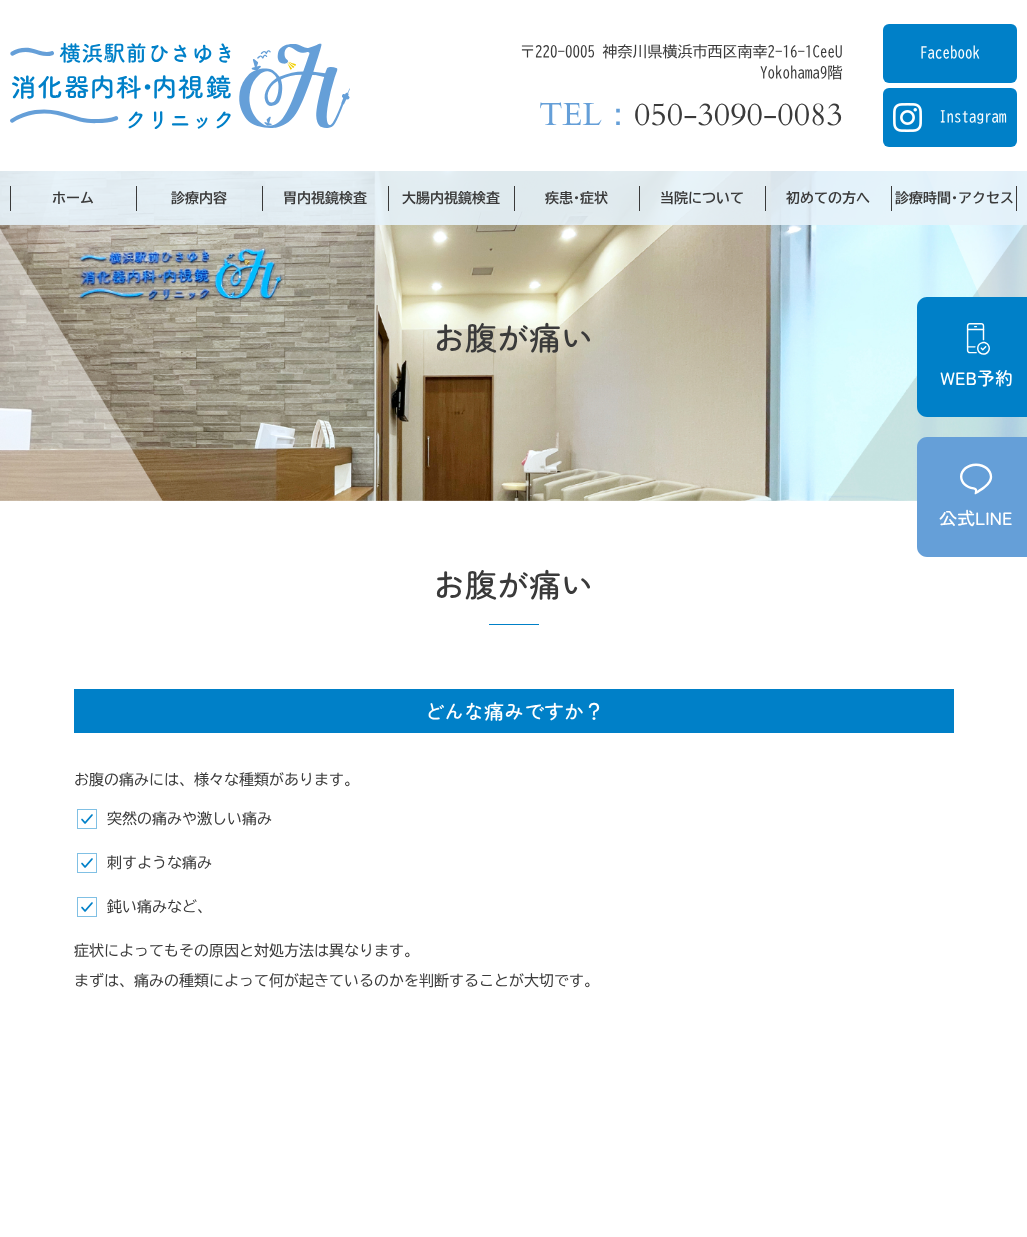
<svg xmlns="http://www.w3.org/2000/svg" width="1027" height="1237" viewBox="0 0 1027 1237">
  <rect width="100%" height="100%" fill="#ffffff"/>
  <image x="10" y="43" width="340" height="86" href="img1.png"/>
  <text x="520" y="57" font-family="BIZ UDGothic" font-size="15" fill="#3a3a3a">〒220-0005 神奈川県横浜市西区南幸2-16-1CeeU</text>
  <text x="760" y="78" font-family="BIZ UDGothic" font-size="15" fill="#3a3a3a">Yokohama9階</text>
  <text x="539" y="125" font-family="Cardo" font-size="32" fill="#659fd8">TEL</text>
  <text x="602" y="125" font-family="WenQuanYi Zen Hei" font-size="32" font-weight="500" fill="#659fd8">：</text>
  <text x="634" y="125" font-family="Cardo" font-size="32" fill="#3a3a3a">050-3090-0083</text>
  <rect x="883" y="24" width="134" height="59" rx="6" fill="#0080c8"/>
  <text x="920" y="58" font-family="BIZ UDGothic" font-size="15" fill="#ffffff">Facebook</text>
  <rect x="883" y="88" width="134" height="59" rx="6" fill="#0080c8"/>
  <image x="893" y="103" width="29" height="29" href="img2.png"/>
  <text x="939" y="122" font-family="BIZ UDGothic" font-size="15" fill="#ffffff">Instagram</text>
  <image x="0" y="171" width="1027" height="330" href="img3.png"/>
  <rect x="0" y="171" width="1027" height="54" fill="#e5f2f9" fill-opacity="0.9"/>
  <rect x="10" y="186" width="1" height="25" fill="#3a3a3a"/>
  <text x="52" y="203" font-family="BIZ UDGothic" font-size="14" font-weight="bold" fill="#3a3a3a">ホーム</text>
  <rect x="136" y="186" width="1" height="25" fill="#3a3a3a"/>
  <text x="171" y="203" font-family="BIZ UDGothic" font-size="14" font-weight="bold" fill="#3a3a3a">診療内容</text>
  <rect x="262" y="186" width="1" height="25" fill="#3a3a3a"/>
  <text x="283" y="203" font-family="BIZ UDGothic" font-size="14" font-weight="bold" fill="#3a3a3a">胃内視鏡検査</text>
  <rect x="388" y="186" width="1" height="25" fill="#3a3a3a"/>
  <text x="402" y="203" font-family="BIZ UDGothic" font-size="14" font-weight="bold" fill="#3a3a3a">大腸内視鏡検査</text>
  <rect x="514" y="186" width="1" height="25" fill="#3a3a3a"/>
  <text x="545" y="203" font-family="BIZ UDGothic" font-size="14" font-weight="bold" fill="#3a3a3a">疾患･症状</text>
  <rect x="639" y="186" width="1" height="25" fill="#3a3a3a"/>
  <text x="660" y="203" font-family="BIZ UDGothic" font-size="14" font-weight="bold" fill="#3a3a3a">当院について</text>
  <rect x="765" y="186" width="1" height="25" fill="#3a3a3a"/>
  <text x="786" y="203" font-family="BIZ UDGothic" font-size="14" font-weight="bold" fill="#3a3a3a">初めての方へ</text>
  <rect x="891" y="186" width="1" height="25" fill="#3a3a3a"/>
  <text x="895" y="203" font-family="BIZ UDGothic" font-size="14" font-weight="bold" fill="#3a3a3a">診療時間･アクセス</text>
  <rect x="1016" y="186" width="1" height="25" fill="#3a3a3a"/>
  <text x="433" y="350" font-family="Zen Maru Gothic" font-size="32" font-weight="500" fill="#3a3a3a">お腹が痛い</text>
  <text x="433" y="597" font-family="Zen Maru Gothic" font-size="32" font-weight="500" fill="#3a3a3a">お腹が痛い</text>
  <rect x="489" y="624" width="50" height="1" fill="#0080c8"/>
  <rect x="74" y="689" width="880" height="44" fill="#0080c8"/>
  <text x="424" y="719" font-family="Zen Maru Gothic" font-size="20" font-weight="500" fill="#ffffff">どんな痛みですか？</text>
  <text x="74" y="785" font-family="BIZ UDGothic" font-size="15" fill="#3a3a3a">お腹の痛みには、様々な種類があります。</text>
  <image x="77" y="809" width="20" height="20" href="img4.png"/>
  <text x="107" y="824" font-family="BIZ UDGothic" font-size="15" fill="#3a3a3a">突然の痛みや激しい痛み</text>
  <image x="77" y="853" width="20" height="20" href="img4.png"/>
  <text x="107" y="868" font-family="BIZ UDGothic" font-size="15" fill="#3a3a3a">刺すような痛み</text>
  <image x="77" y="897" width="20" height="20" href="img4.png"/>
  <text x="107" y="912" font-family="BIZ UDGothic" font-size="15" fill="#3a3a3a">鈍い痛みなど、</text>
  <text x="74" y="956" font-family="BIZ UDGothic" font-size="15" fill="#3a3a3a">症状によってもその原因と対処方法は異なります。</text>
  <text x="74" y="986" font-family="BIZ UDGothic" font-size="15" fill="#3a3a3a">まずは、痛みの種類によって何が起きているのかを判断することが大切です。</text>
  <path d="M927 297H1027V417H927C921.5 417 917 412.5 917 407V307C917 301.5 921.5 297 927 297Z" fill="#0080c8"/>
  <image x="966" y="323" width="24" height="32" href="img5.png"/>
  <text x="940" y="385" font-family="Zen Maru Gothic" font-size="18" font-weight="500" fill="#ffffff">WEB予約</text>
  <path d="M927 437H1027V557H927C921.5 557 917 552.5 917 547V447C917 441.5 921.5 437 927 437Z" fill="#659fd8"/>
  <image x="960" y="463" width="33" height="32" href="img6.png"/>
  <text x="939" y="525" font-family="Zen Maru Gothic" font-size="18" font-weight="500" fill="#ffffff">公式LINE</text>
</svg>
